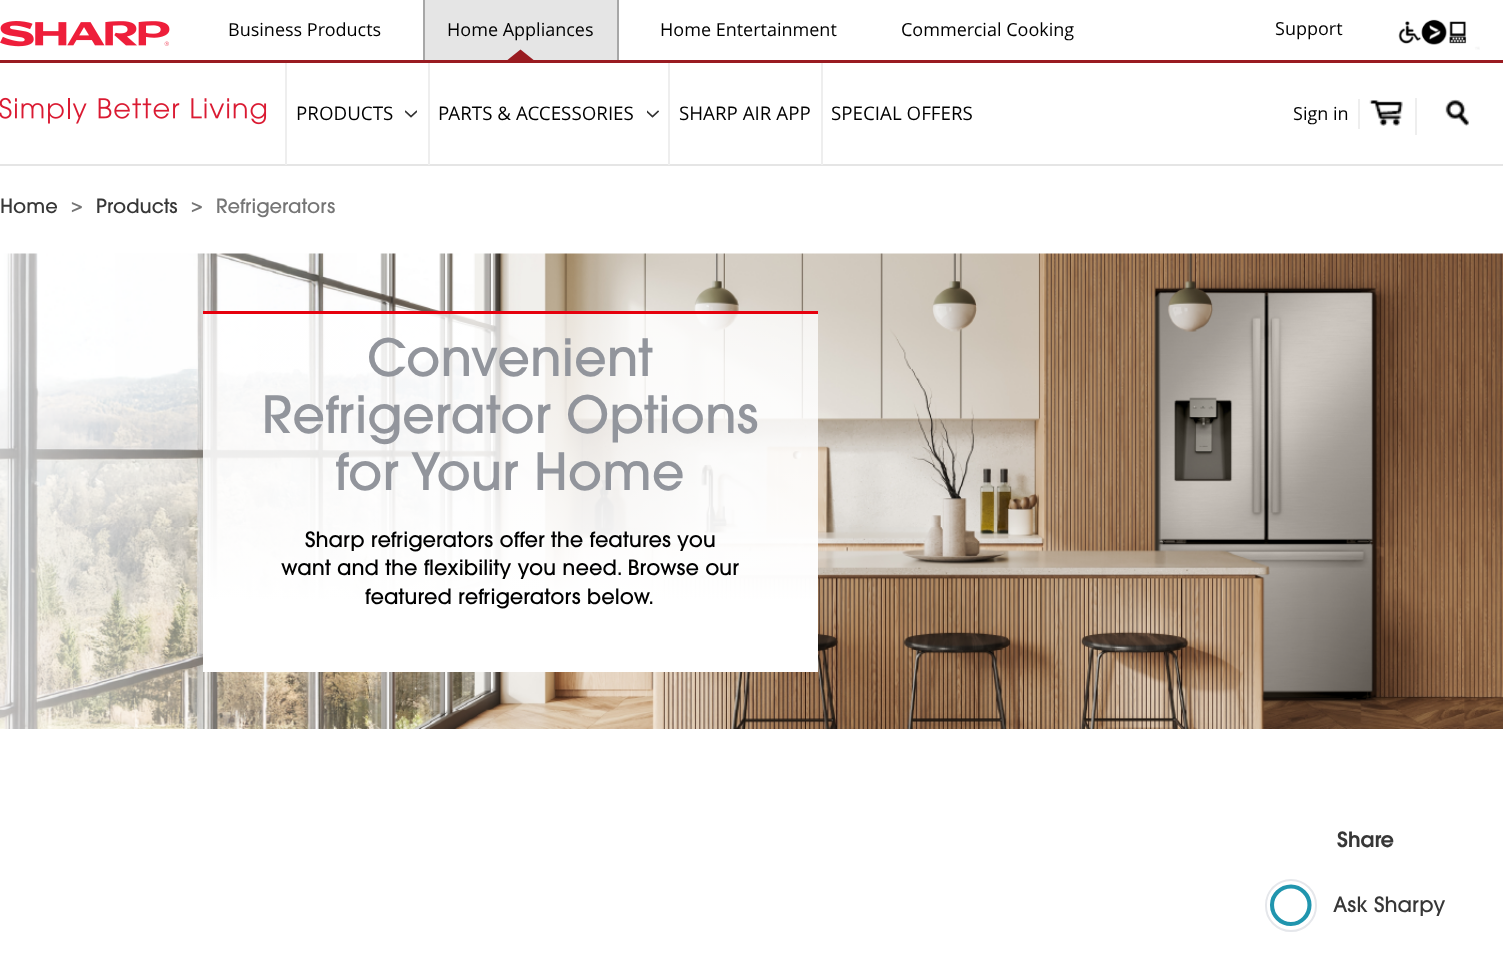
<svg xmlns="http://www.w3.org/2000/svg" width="1503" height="970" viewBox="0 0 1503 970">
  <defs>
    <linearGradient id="g1" gradientUnits="userSpaceOnUse" x1="510" y1="313" x2="510" y2="671"><stop offset="0" stop-color="#ffffff" stop-opacity="0.5"/><stop offset="0.8" stop-color="#ffffff"/></linearGradient>
  </defs>
  <rect width="100%" height="100%" fill="#ffffff"/>
  <rect x="0" y="164" width="1503" height="2" fill="#e5e5e5"/>
  <rect x="0" y="60" width="1503" height="3" fill="#991b21"/>
  <image x="0" y="21" width="170" height="26" href="img1.png"/>
  <text x="228" y="36" font-family="Open Sans" font-size="18" fill="#000000">Business Products</text>
  <rect x="425" y="0" width="192" height="60" fill="#e5e5e5"/>
  <rect x="617" y="0" width="2" height="60" fill="#a7a7a7"/>
  <rect x="423" y="0" width="2" height="60" fill="#a7a7a7"/>
  <text x="447" y="36" font-family="Open Sans" font-size="18" fill="#000000">Home Appliances</text>
  <path d="M535.5 61.5H505.5L520.5 49.5Z" fill="#991b21"/>
  <text x="660" y="36" font-family="Open Sans" font-size="18" fill="#000000">Home Entertainment</text>
  <text x="901" y="36" font-family="Open Sans" font-size="18" fill="#000000">Commercial Cooking</text>
  <text x="1275" y="35" font-family="Open Sans" font-size="18" fill="#000000">Support</text>
  <image x="1398" y="19" width="82" height="31" href="img2.png"/>
  <image x="0" y="97" width="267" height="28" href="img3.png"/>
  <rect x="285" y="63" width="2" height="102" fill="#eeeeee"/>
  <rect x="428" y="63" width="2" height="102" fill="#eeeeee"/>
  <text x="296" y="120" font-family="Open Sans" font-size="18.75" fill="#000000">PRODUCTS</text>
  <image x="405" y="110" width="12" height="8" href="img4.png"/>
  <rect x="668" y="63" width="2" height="102" fill="#eeeeee"/>
  <text x="438" y="120" font-family="Open Sans" font-size="18.75" fill="#000000">PARTS &amp; ACCESSORIES</text>
  <image x="647" y="110" width="12" height="8" href="img5.png"/>
  <rect x="821" y="63" width="2" height="102" fill="#eeeeee"/>
  <text x="679" y="120" font-family="Open Sans" font-size="18.75" fill="#000000">SHARP AIR APP</text>
  <text x="831" y="120" font-family="Open Sans" font-size="18.75" fill="#000000">SPECIAL OFFERS</text>
  <rect x="1358" y="99" width="2" height="30" fill="#eeeeee"/>
  <text x="1293" y="120" font-family="Open Sans" font-size="18" fill="#000000">Sign in</text>
  <rect x="1415" y="98" width="2" height="37" fill="#eeeeee"/>
  <image x="1369" y="100" width="34" height="26" href="img6.png"/>
  <image x="1445" y="99" width="24" height="27" href="img7.png"/>
  <text x="0" y="213" font-family="'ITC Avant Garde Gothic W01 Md'" font-size="19.5" font-weight="500" fill="#373737">Home</text>
  <text x="71" y="212" font-family="'ITC Avant Garde Gothic W01 Md'" font-size="19.5" font-weight="500" fill="#757575">&gt;</text>
  <text x="96" y="213" font-family="'ITC Avant Garde Gothic W01 Md'" font-size="19.5" font-weight="500" fill="#373737">Products</text>
  <text x="191" y="212" font-family="'ITC Avant Garde Gothic W01 Md'" font-size="19.5" font-weight="500" fill="#757575">&gt;</text>
  <text x="216" y="213" font-family="'ITC Avant Garde Gothic W01 Md'" font-size="19.5" font-weight="500" fill="#757575">Refrigerators</text>
  <image x="0" y="253" width="1503" height="476" href="img8.png"/>
  <rect x="203" y="314" width="615" height="282" fill="#ffffff" fill-opacity="0.5"/>
  <rect x="203" y="314" width="615" height="358" fill="url(#g1)"/>
  <rect x="203" y="311" width="615" height="3" fill="#e6000d"/>
  <text x="367" y="376" font-family="'ITC Avant Garde Gothic W01 Md'" font-size="51" font-weight="500" fill="#92959c">Convenient</text>
  <text x="262" y="433" font-family="'ITC Avant Garde Gothic W01 Md'" font-size="51" font-weight="500" fill="#92959c">Refrigerator Options</text>
  <text x="335" y="490" font-family="'ITC Avant Garde Gothic W01 Md'" font-size="51" font-weight="500" fill="#92959c">for Your Home</text>
  <text x="305" y="547" font-family="'ITC Avant Garde Gothic W01 Md'" font-size="21" font-weight="500" fill="#000000">Sharp refrigerators offer the features you</text>
  <text x="281" y="575" font-family="'ITC Avant Garde Gothic W01 Md'" font-size="21" font-weight="500" fill="#000000">want and the flexibility you need. Browse our</text>
  <text x="365" y="604" font-family="'ITC Avant Garde Gothic W01 Md'" font-size="21" font-weight="500" fill="#000000">featured refrigerators below.</text>
  <text x="1337" y="847" font-family="'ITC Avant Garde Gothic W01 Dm'" font-size="21" font-weight="600" fill="#373737">Share</text>
  <rect x="1266" y="880" width="50" height="51" rx="25" fill="none" stroke="#e5e7eb" stroke-width="2"/>
  <path d="M1309.5 905C1309.5 915.5 1301 924 1291 924C1280.5 924 1272 915.5 1272 905C1272 895 1280.5 886.5 1291 886.5C1301 886.5 1309.5 895 1309.5 905Z" fill="none" stroke="#2095ae" stroke-width="4.1" stroke-linecap="round" stroke-linejoin="round"/>
  <text x="1333" y="912" font-family="'ITC Avant Garde Gothic W01 Md'" font-size="21" font-weight="500" fill="#373737">Ask Sharpy</text>
</svg>
